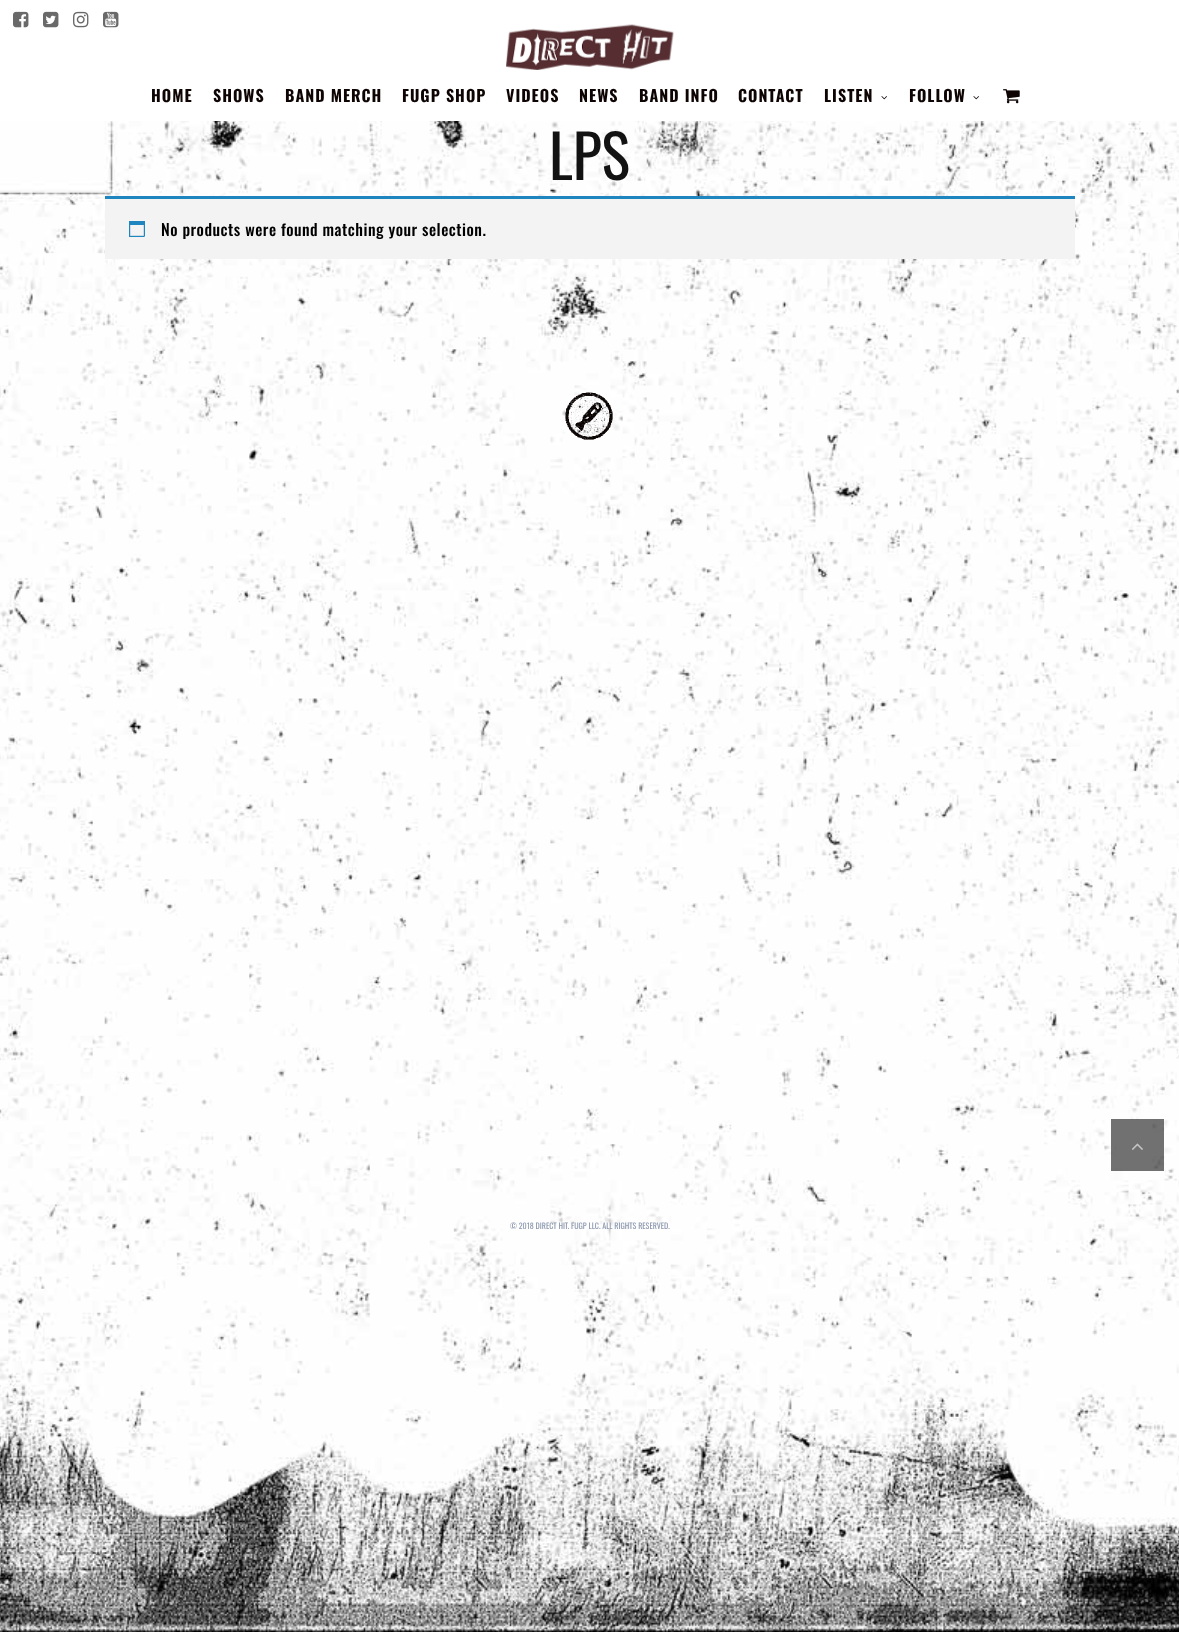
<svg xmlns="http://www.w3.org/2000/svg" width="1179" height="1632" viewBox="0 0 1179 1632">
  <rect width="100%" height="100%" fill="#ffffff"/>
  <image x="0" y="121" width="1179" height="1511" href="img1.png"/>
  <image x="13" y="11" width="16" height="17" href="img2.png"/>
  <image x="43" y="11" width="16" height="17" href="img3.png"/>
  <image x="73" y="11" width="16" height="17" href="img4.png"/>
  <image x="103" y="11" width="16" height="17" href="img5.png"/>
  <image x="506" y="24" width="168" height="46" href="img6.png"/>
  <text x="151" y="102" font-family="Oswald" font-size="16" font-weight="bold" letter-spacing="1" fill="#0d0403">HOME</text>
  <text x="213" y="102" font-family="Oswald" font-size="16" font-weight="bold" letter-spacing="1" fill="#0d0403">SHOWS</text>
  <text x="285" y="102" font-family="Oswald" font-size="16" font-weight="bold" letter-spacing="1" fill="#0d0403">BAND MERCH</text>
  <text x="402" y="102" font-family="Oswald" font-size="16" font-weight="bold" letter-spacing="1" fill="#0d0403">FUGP SHOP</text>
  <text x="506" y="102" font-family="Oswald" font-size="16" font-weight="bold" letter-spacing="1" fill="#0d0403">VIDEOS</text>
  <text x="579" y="102" font-family="Oswald" font-size="16" font-weight="bold" letter-spacing="1" fill="#0d0403">NEWS</text>
  <text x="639" y="102" font-family="Oswald" font-size="16" font-weight="bold" letter-spacing="1" fill="#0d0403">BAND INFO</text>
  <text x="738" y="102" font-family="Oswald" font-size="16" font-weight="bold" letter-spacing="1" fill="#0d0403">CONTACT</text>
  <text x="824" y="102" font-family="Oswald" font-size="16" font-weight="bold" letter-spacing="1" fill="#0d0403">LISTEN</text>
  <image x="881" y="96" width="6" height="4" href="img7.png"/>
  <text x="909" y="102" font-family="Oswald" font-size="16" font-weight="bold" letter-spacing="1" fill="#0d0403">FOLLOW</text>
  <image x="973" y="96" width="6" height="4" href="img7.png"/>
  <image x="1003" y="89" width="17" height="15" href="img8.png"/>
  <text x="549" y="180" font-family="Oswald" font-size="60" fill="#121212">LPS</text>
  <rect x="105" y="199" width="970" height="60" fill="#f3f3f3"/>
  <rect x="105" y="196" width="970" height="3" fill="#1e85be"/>
  <image x="129" y="221" width="16" height="16" href="img9.png"/>
  <text x="161" y="236" font-family="Oswald" font-size="16" font-weight="500" letter-spacing="0.5" fill="#000000">No products were found matching your selection.</text>
  <rect x="1111" y="1119" width="53" height="52" fill="#121212" fill-opacity="0.6"/>
  <image x="1132" y="1143" width="11" height="7" href="img10.png"/>
  <image x="565" y="392" width="48" height="48" href="img11.png"/>
  <text x="510" y="1229" font-family="Oswald" font-size="8" fill="#8d99ae">© 2018 DIRECT HIT. FUGP LLC. ALL RIGHTS RESERVED.</text>
</svg>
